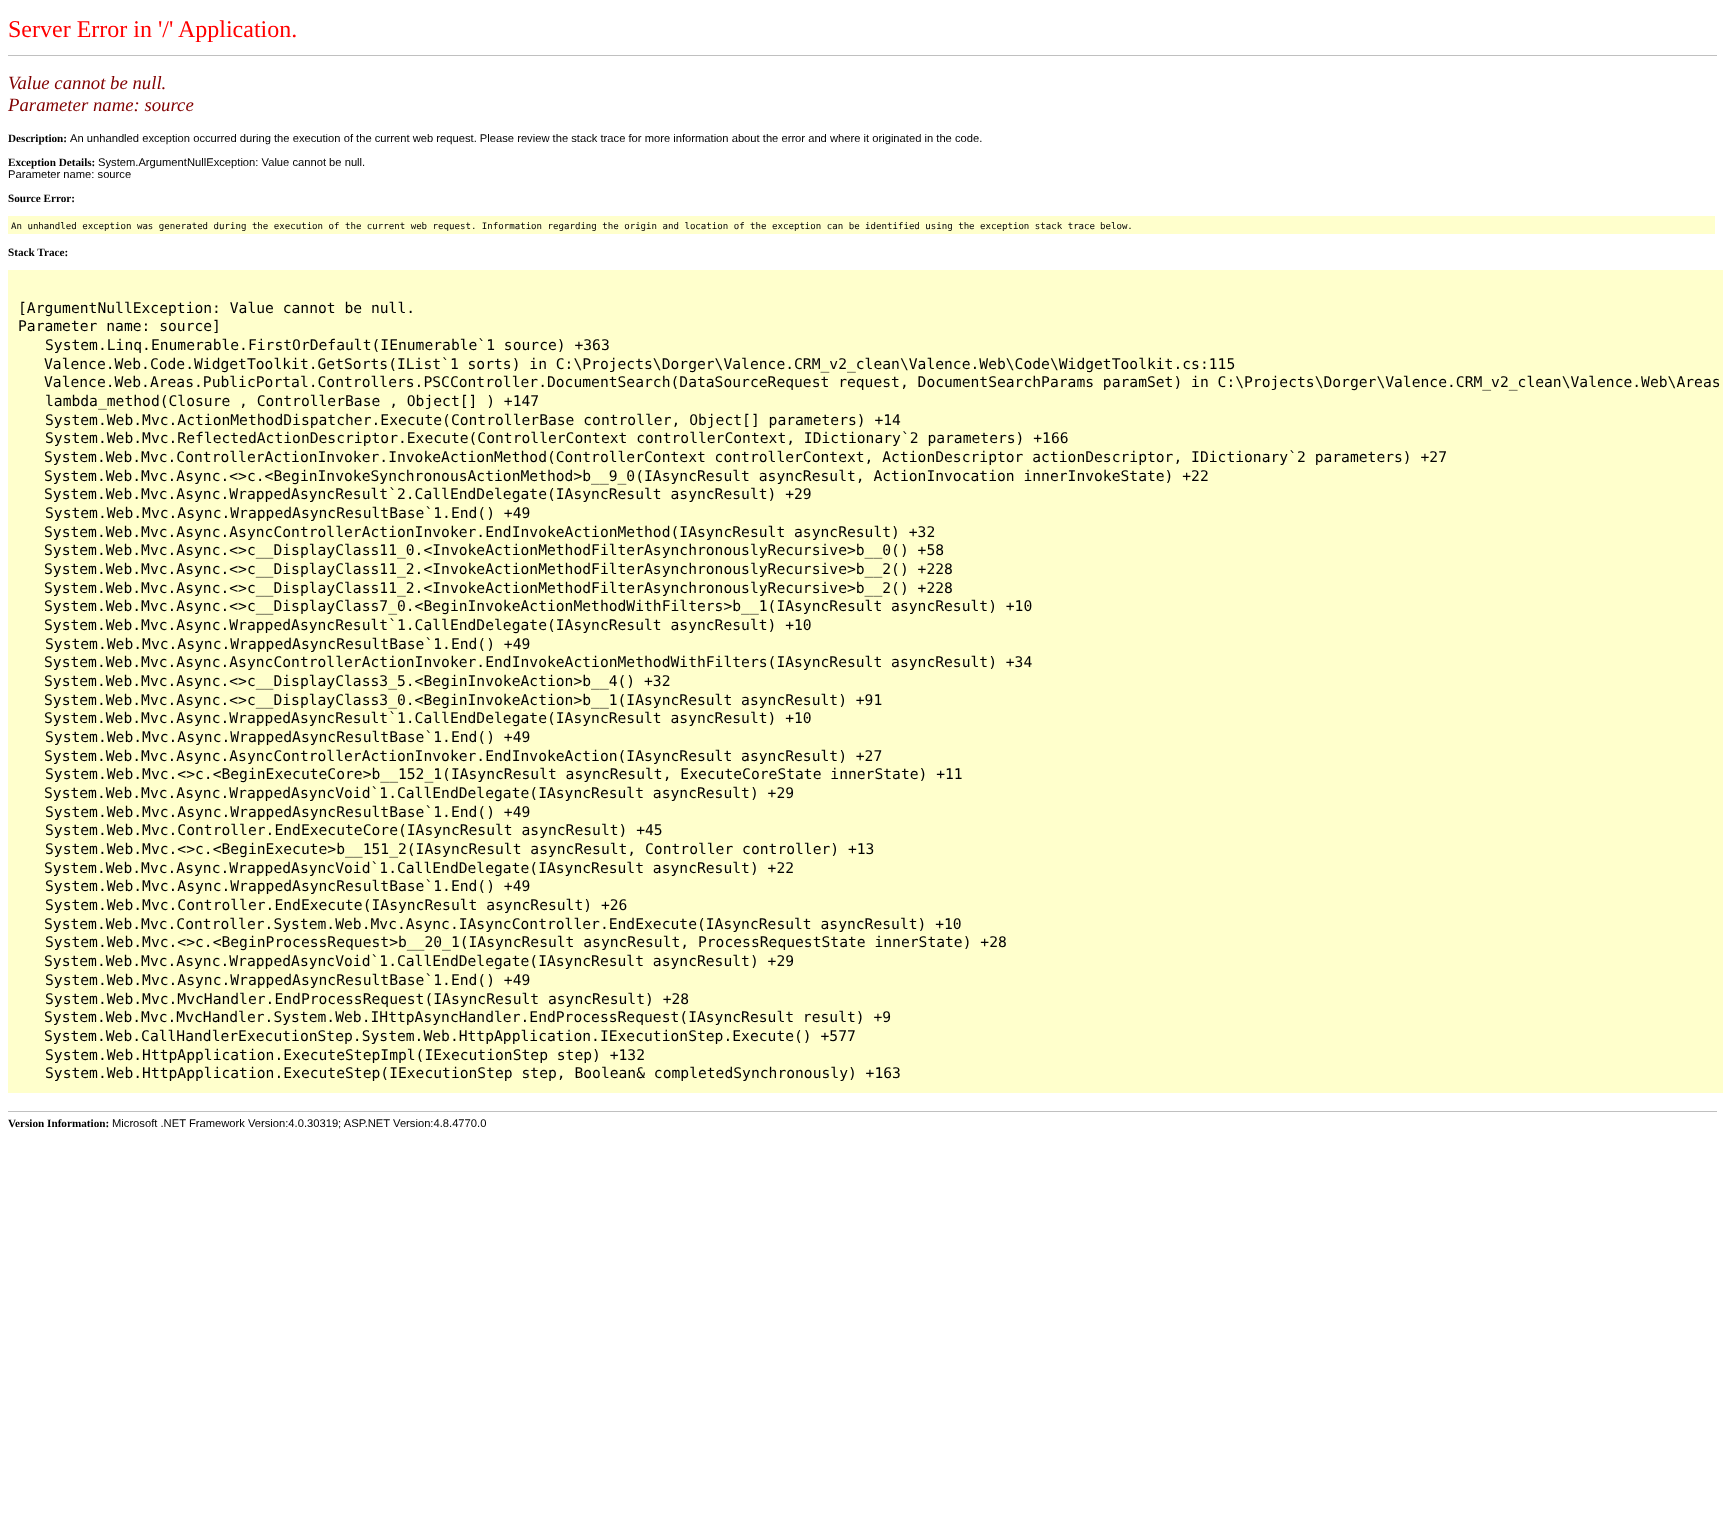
<svg xmlns="http://www.w3.org/2000/svg" width="1723" height="1530" viewBox="0 0 1723 1530">
  <rect width="100%" height="100%" fill="#ffffff"/>
  <text x="8" y="37" font-family="Liberation Serif" font-size="24" fill="#ff0000">Server Error in '/' Application.</text>
  <rect x="8" y="55" width="1709" height="1" fill="#c0c0c0"/>
  <text x="8" y="89" font-family="Liberation Serif" font-size="18.75" font-style="italic" fill="#800000">Value cannot be null.</text>
  <text x="8" y="111" font-family="Liberation Serif" font-size="18.75" font-style="italic" fill="#800000">Parameter name: source</text>
  <text x="8" y="142" font-family="Liberation Serif" font-size="11.2" font-weight="bold" fill="#000000">Description:</text>
  <text x="70" y="142" font-family="Liberation Sans" font-size="11.2" fill="#000000">An unhandled exception occurred during the execution of the current web request. Please review the stack trace for more information about the error and where it originated in the code.</text>
  <text x="8" y="166" font-family="Liberation Serif" font-size="11.2" font-weight="bold" fill="#000000">Exception Details:</text>
  <text x="98" y="166" font-family="Liberation Sans" font-size="11.2" fill="#000000">System.ArgumentNullException: Value cannot be null.</text>
  <text x="8" y="178" font-family="Liberation Sans" font-size="11.2" fill="#000000">Parameter name: source</text>
  <text x="8" y="202" font-family="Liberation Serif" font-size="11.2" font-weight="bold" fill="#000000">Source Error:</text>
  <rect x="8" y="216" width="1707" height="18" fill="#ffffcc"/>
  <text x="11" y="229" font-family="DejaVu Sans Mono" font-size="9.1" fill="#000000">An unhandled exception was generated during the execution of the current web request. Information regarding the origin and location of the exception can be identified using the exception stack trace</text>
  <text x="1100" y="229" font-family="DejaVu Sans Mono" font-size="9.1" fill="#000000">below.</text>
  <text x="8" y="256" font-family="Liberation Serif" font-size="11.2" font-weight="bold" fill="#000000">Stack Trace:</text>
  <rect x="8" y="270" width="1715" height="823" fill="#ffffcc"/>
  <text x="18" y="313" font-family="DejaVu Sans Mono" font-size="14.67" fill="#000000">[ArgumentNullException: Value cannot be null.</text>
  <text x="18" y="331" font-family="DejaVu Sans Mono" font-size="14.67" fill="#000000">Parameter name: source]</text>
  <text x="45" y="350" font-family="DejaVu Sans Mono" font-size="14.67" fill="#000000">System.Linq.Enumerable.FirstOrDefault(IEnumerable`1 source) +363</text>
  <text x="44" y="369" font-family="DejaVu Sans Mono" font-size="14.67" fill="#000000">Valence.Web.Code.WidgetToolkit.GetSorts(IList`1 sorts) in C:\Projects\Dorger\Valence.CRM_v2_clean\Valence.Web\Code\WidgetToolkit.cs:115</text>
  <text x="44" y="387" font-family="DejaVu Sans Mono" font-size="14.67" fill="#000000">Valence.Web.Areas.PublicPortal.Controllers.PSCController.DocumentSearch(DataSourceRequest request, DocumentSearchParams paramSet) in C:\Projects\Dorger\Valence.CRM_v2_clean\Valence.Web\Areas</text>
  <text x="45" y="406" font-family="DejaVu Sans Mono" font-size="14.67" fill="#000000">lambda_method(Closure , ControllerBase , Object[] ) +147</text>
  <text x="45" y="425" font-family="DejaVu Sans Mono" font-size="14.67" fill="#000000">System.Web.Mvc.ActionMethodDispatcher.Execute(ControllerBase controller, Object[] parameters) +14</text>
  <text x="45" y="443" font-family="DejaVu Sans Mono" font-size="14.67" fill="#000000">System.Web.Mvc.ReflectedActionDescriptor.Execute(ControllerContext controllerContext, IDictionary`2 parameters) +166</text>
  <text x="44" y="462" font-family="DejaVu Sans Mono" font-size="14.67" fill="#000000">System.Web.Mvc.ControllerActionInvoker.InvokeActionMethod(ControllerContext controllerContext, ActionDescriptor actionDescriptor, IDictionary`2 parameters) +27</text>
  <text x="44" y="481" font-family="DejaVu Sans Mono" font-size="14.67" fill="#000000">System.Web.Mvc.Async.&lt;&gt;c.&lt;BeginInvokeSynchronousActionMethod&gt;b__9_0(IAsyncResult asyncResult, ActionInvocation innerInvokeState) +22</text>
  <text x="44" y="499" font-family="DejaVu Sans Mono" font-size="14.67" fill="#000000">System.Web.Mvc.Async.WrappedAsyncResult`2.CallEndDelegate(IAsyncResult asyncResult) +29</text>
  <text x="45" y="518" font-family="DejaVu Sans Mono" font-size="14.67" fill="#000000">System.Web.Mvc.Async.WrappedAsyncResultBase`1.End() +49</text>
  <text x="44" y="537" font-family="DejaVu Sans Mono" font-size="14.67" fill="#000000">System.Web.Mvc.Async.AsyncControllerActionInvoker.EndInvokeActionMethod(IAsyncResult asyncResult) +32</text>
  <text x="44" y="555" font-family="DejaVu Sans Mono" font-size="14.67" fill="#000000">System.Web.Mvc.Async.&lt;&gt;c__DisplayClass11_0.&lt;InvokeActionMethodFilterAsynchronouslyRecursive&gt;b__0() +58</text>
  <text x="44" y="574" font-family="DejaVu Sans Mono" font-size="14.67" fill="#000000">System.Web.Mvc.Async.&lt;&gt;c__DisplayClass11_2.&lt;InvokeActionMethodFilterAsynchronouslyRecursive&gt;b__2() +228</text>
  <text x="44" y="593" font-family="DejaVu Sans Mono" font-size="14.67" fill="#000000">System.Web.Mvc.Async.&lt;&gt;c__DisplayClass11_2.&lt;InvokeActionMethodFilterAsynchronouslyRecursive&gt;b__2() +228</text>
  <text x="44" y="611" font-family="DejaVu Sans Mono" font-size="14.67" fill="#000000">System.Web.Mvc.Async.&lt;&gt;c__DisplayClass7_0.&lt;BeginInvokeActionMethodWithFilters&gt;b__1(IAsyncResult asyncResult) +10</text>
  <text x="44" y="630" font-family="DejaVu Sans Mono" font-size="14.67" fill="#000000">System.Web.Mvc.Async.WrappedAsyncResult`1.CallEndDelegate(IAsyncResult asyncResult) +10</text>
  <text x="45" y="649" font-family="DejaVu Sans Mono" font-size="14.67" fill="#000000">System.Web.Mvc.Async.WrappedAsyncResultBase`1.End() +49</text>
  <text x="44" y="667" font-family="DejaVu Sans Mono" font-size="14.67" fill="#000000">System.Web.Mvc.Async.AsyncControllerActionInvoker.EndInvokeActionMethodWithFilters(IAsyncResult asyncResult) +34</text>
  <text x="44" y="686" font-family="DejaVu Sans Mono" font-size="14.67" fill="#000000">System.Web.Mvc.Async.&lt;&gt;c__DisplayClass3_5.&lt;BeginInvokeAction&gt;b__4() +32</text>
  <text x="44" y="705" font-family="DejaVu Sans Mono" font-size="14.67" fill="#000000">System.Web.Mvc.Async.&lt;&gt;c__DisplayClass3_0.&lt;BeginInvokeAction&gt;b__1(IAsyncResult asyncResult) +91</text>
  <text x="44" y="723" font-family="DejaVu Sans Mono" font-size="14.67" fill="#000000">System.Web.Mvc.Async.WrappedAsyncResult`1.CallEndDelegate(IAsyncResult asyncResult) +10</text>
  <text x="45" y="742" font-family="DejaVu Sans Mono" font-size="14.67" fill="#000000">System.Web.Mvc.Async.WrappedAsyncResultBase`1.End() +49</text>
  <text x="44" y="761" font-family="DejaVu Sans Mono" font-size="14.67" fill="#000000">System.Web.Mvc.Async.AsyncControllerActionInvoker.EndInvokeAction(IAsyncResult asyncResult) +27</text>
  <text x="45" y="779" font-family="DejaVu Sans Mono" font-size="14.67" fill="#000000">System.Web.Mvc.&lt;&gt;c.&lt;BeginExecuteCore&gt;b__152_1(IAsyncResult asyncResult, ExecuteCoreState innerState) +11</text>
  <text x="44" y="798" font-family="DejaVu Sans Mono" font-size="14.67" fill="#000000">System.Web.Mvc.Async.WrappedAsyncVoid`1.CallEndDelegate(IAsyncResult asyncResult) +29</text>
  <text x="45" y="817" font-family="DejaVu Sans Mono" font-size="14.67" fill="#000000">System.Web.Mvc.Async.WrappedAsyncResultBase`1.End() +49</text>
  <text x="45" y="835" font-family="DejaVu Sans Mono" font-size="14.67" fill="#000000">System.Web.Mvc.Controller.EndExecuteCore(IAsyncResult asyncResult) +45</text>
  <text x="45" y="854" font-family="DejaVu Sans Mono" font-size="14.67" fill="#000000">System.Web.Mvc.&lt;&gt;c.&lt;BeginExecute&gt;b__151_2(IAsyncResult asyncResult, Controller controller) +13</text>
  <text x="44" y="873" font-family="DejaVu Sans Mono" font-size="14.67" fill="#000000">System.Web.Mvc.Async.WrappedAsyncVoid`1.CallEndDelegate(IAsyncResult asyncResult) +22</text>
  <text x="45" y="891" font-family="DejaVu Sans Mono" font-size="14.67" fill="#000000">System.Web.Mvc.Async.WrappedAsyncResultBase`1.End() +49</text>
  <text x="45" y="910" font-family="DejaVu Sans Mono" font-size="14.67" fill="#000000">System.Web.Mvc.Controller.EndExecute(IAsyncResult asyncResult) +26</text>
  <text x="44" y="929" font-family="DejaVu Sans Mono" font-size="14.67" fill="#000000">System.Web.Mvc.Controller.System.Web.Mvc.Async.IAsyncController.EndExecute(IAsyncResult asyncResult) +10</text>
  <text x="45" y="947" font-family="DejaVu Sans Mono" font-size="14.67" fill="#000000">System.Web.Mvc.&lt;&gt;c.&lt;BeginProcessRequest&gt;b__20_1(IAsyncResult asyncResult, ProcessRequestState innerState) +28</text>
  <text x="44" y="966" font-family="DejaVu Sans Mono" font-size="14.67" fill="#000000">System.Web.Mvc.Async.WrappedAsyncVoid`1.CallEndDelegate(IAsyncResult asyncResult) +29</text>
  <text x="45" y="985" font-family="DejaVu Sans Mono" font-size="14.67" fill="#000000">System.Web.Mvc.Async.WrappedAsyncResultBase`1.End() +49</text>
  <text x="45" y="1004" font-family="DejaVu Sans Mono" font-size="14.67" fill="#000000">System.Web.Mvc.MvcHandler.EndProcessRequest(IAsyncResult asyncResult) +28</text>
  <text x="44" y="1022" font-family="DejaVu Sans Mono" font-size="14.67" fill="#000000">System.Web.Mvc.MvcHandler.System.Web.IHttpAsyncHandler.EndProcessRequest(IAsyncResult result) +9</text>
  <text x="44" y="1041" font-family="DejaVu Sans Mono" font-size="14.67" fill="#000000">System.Web.CallHandlerExecutionStep.System.Web.HttpApplication.IExecutionStep.Execute() +577</text>
  <text x="45" y="1060" font-family="DejaVu Sans Mono" font-size="14.67" fill="#000000">System.Web.HttpApplication.ExecuteStepImpl(IExecutionStep step) +132</text>
  <text x="45" y="1078" font-family="DejaVu Sans Mono" font-size="14.67" fill="#000000">System.Web.HttpApplication.ExecuteStep(IExecutionStep step, Boolean&amp; completedSynchronously) +163</text>
  <rect x="8" y="1111" width="1709" height="1" fill="#c0c0c0"/>
  <text x="8" y="1127" font-family="Liberation Serif" font-size="11.2" font-weight="bold" fill="#000000">Version Information:</text>
  <text x="112" y="1127" font-family="Liberation Sans" font-size="11.2" fill="#000000">Microsoft .NET Framework Version:4.0.30319; ASP.NET Version:4.8.4770.0</text>
</svg>
